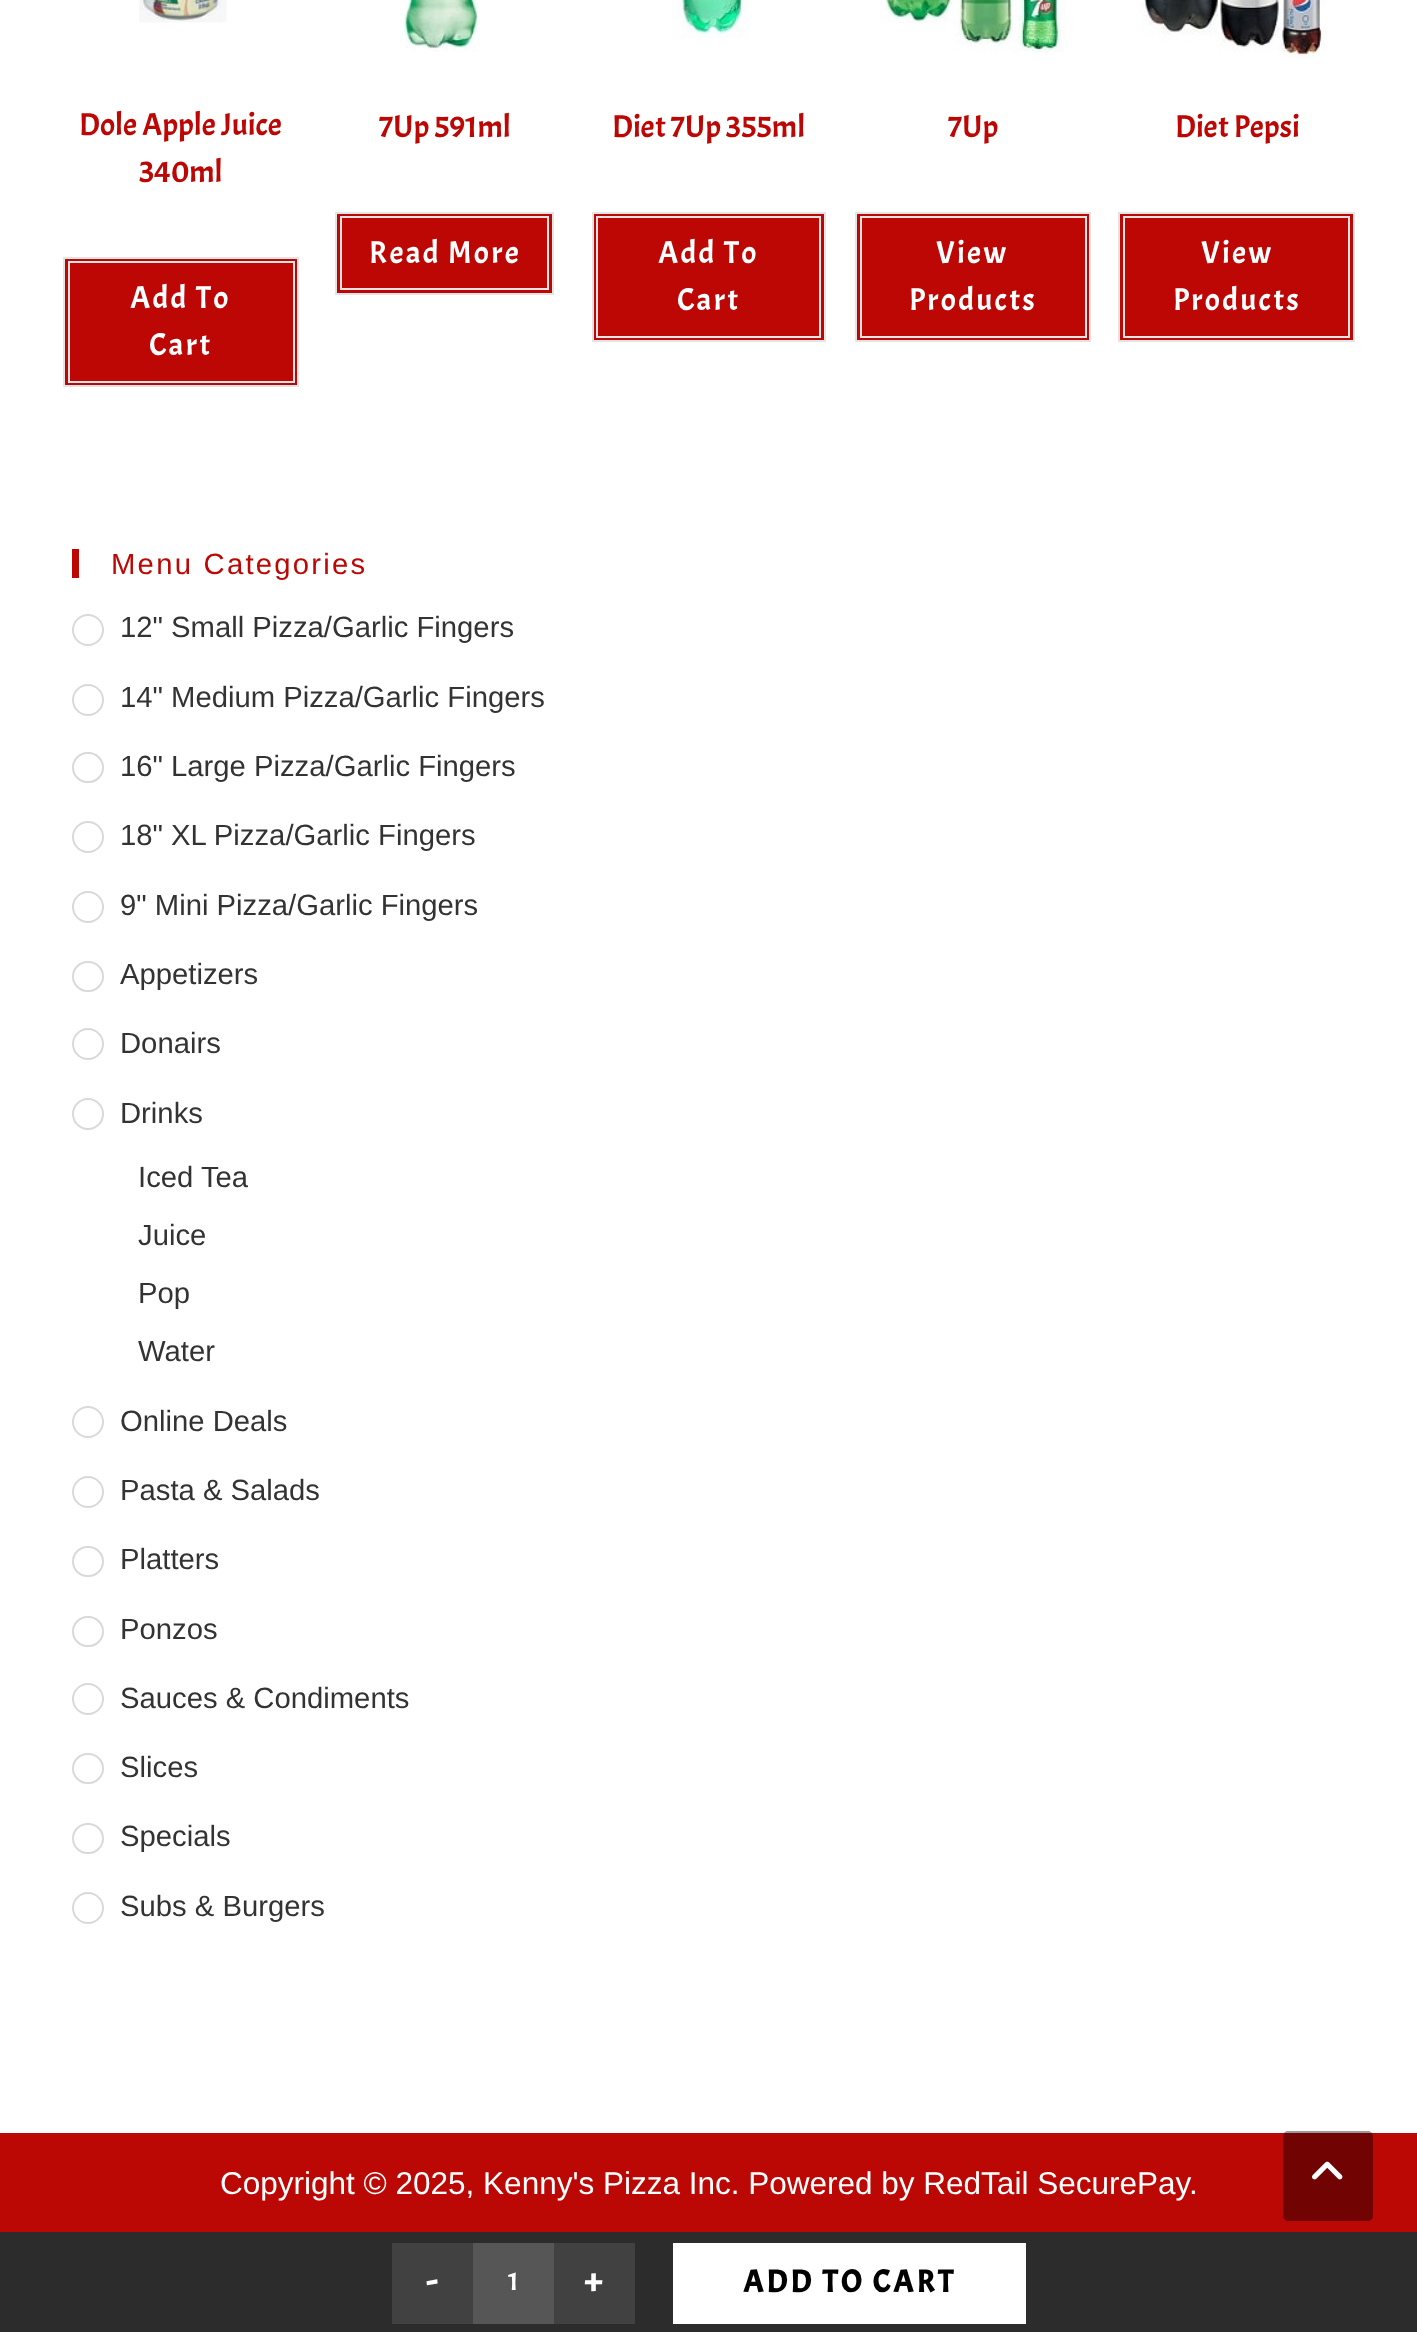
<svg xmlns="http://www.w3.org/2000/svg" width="1417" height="2332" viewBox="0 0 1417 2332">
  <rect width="100%" height="100%" fill="#ffffff"/>
  <image x="139" y="0" width="88" height="23" href="img1.png"/>
  <text x="79" y="135" font-family="Acme" font-size="31.5" fill="#bc0705">Dole Apple Juice</text>
  <text x="139" y="182" font-family="Acme" font-size="31.5" fill="#bc0705">340ml</text>
  <rect x="64" y="258" width="234" height="128" fill="#bc0705" stroke="#e4e4e4" stroke-width="2"/>
  <rect x="69" y="262" width="225" height="120" fill="none" stroke="#e4e4e4" stroke-width="2"/>
  <text x="130" y="308" font-family="Acme" font-size="31.5" letter-spacing="2.25" fill="#ffffff">Add To</text>
  <text x="149" y="355" font-family="Acme" font-size="31.5" letter-spacing="2.25" fill="#ffffff">Cart</text>
  <image x="403" y="0" width="76" height="52" href="img2.png"/>
  <text x="379" y="137" font-family="Acme" font-size="31.5" fill="#bc0705">7Up 591ml</text>
  <rect x="336" y="213" width="217" height="81" fill="#bc0705" stroke="#e4e4e4" stroke-width="2"/>
  <rect x="341" y="217" width="207" height="72" fill="none" stroke="#e4e4e4" stroke-width="2"/>
  <text x="369" y="263" font-family="Acme" font-size="31.5" letter-spacing="2.25" fill="#ffffff">Read More</text>
  <image x="672" y="0" width="77" height="39" href="img3.png"/>
  <text x="612" y="137" font-family="Acme" font-size="31.5" fill="#bc0705">Diet 7Up 355ml</text>
  <rect x="593" y="213" width="232" height="128" fill="#bc0705" stroke="#e4e4e4" stroke-width="2"/>
  <rect x="597" y="217" width="223" height="120" fill="none" stroke="#e4e4e4" stroke-width="2"/>
  <text x="658" y="263" font-family="Acme" font-size="31.5" letter-spacing="2.25" fill="#ffffff">Add To</text>
  <text x="677" y="310" font-family="Acme" font-size="31.5" letter-spacing="2.25" fill="#ffffff">Cart</text>
  <image x="880" y="0" width="186" height="53" href="img4.png"/>
  <text x="948" y="137" font-family="Acme" font-size="31.5" fill="#bc0705">7Up</text>
  <rect x="856" y="213" width="234" height="128" fill="#bc0705" stroke="#e4e4e4" stroke-width="2"/>
  <rect x="861" y="217" width="225" height="120" fill="none" stroke="#e4e4e4" stroke-width="2"/>
  <text x="936" y="263" font-family="Acme" font-size="31.5" letter-spacing="2.25" fill="#ffffff">View</text>
  <text x="909" y="310" font-family="Acme" font-size="31.5" letter-spacing="2.25" fill="#ffffff">Products</text>
  <image x="1139" y="0" width="187" height="58" href="img5.png"/>
  <text x="1175" y="137" font-family="Acme" font-size="31.5" fill="#bc0705">Diet Pepsi</text>
  <rect x="1119" y="213" width="235" height="128" fill="#bc0705" stroke="#e4e4e4" stroke-width="2"/>
  <rect x="1124" y="217" width="225" height="120" fill="none" stroke="#e4e4e4" stroke-width="2"/>
  <text x="1201" y="263" font-family="Acme" font-size="31.5" letter-spacing="2.25" fill="#ffffff">View</text>
  <text x="1173" y="310" font-family="Acme" font-size="31.5" letter-spacing="2.25" fill="#ffffff">Products</text>
  <rect x="72" y="549" width="7" height="29" fill="#bc0705"/>
  <text x="111" y="574" font-family="Liberation Sans" font-size="29.25" letter-spacing="2.25" fill="#bc0705">Menu Categories</text>
  <circle cx="88" cy="630" r="15" fill="none" stroke="#d9d9d9" stroke-width="2"/>
  <text x="120" y="637" font-family="Liberation Sans" font-size="29.25" fill="#333333">12" Small Pizza/Garlic Fingers</text>
  <circle cx="88" cy="700" r="15" fill="none" stroke="#d9d9d9" stroke-width="2"/>
  <text x="120" y="707" font-family="Liberation Sans" font-size="29.25" fill="#333333">14" Medium Pizza/Garlic Fingers</text>
  <rect x="73" y="753" width="30" height="29" rx="14.5" fill="none" stroke="#d9d9d9" stroke-width="2"/>
  <text x="120" y="776" font-family="Liberation Sans" font-size="29.25" fill="#333333">16" Large Pizza/Garlic Fingers</text>
  <circle cx="88" cy="837" r="15" fill="none" stroke="#d9d9d9" stroke-width="2"/>
  <text x="120" y="845" font-family="Liberation Sans" font-size="29.25" fill="#333333">18" XL Pizza/Garlic Fingers</text>
  <circle cx="88" cy="907" r="15" fill="none" stroke="#d9d9d9" stroke-width="2"/>
  <text x="120" y="915" font-family="Liberation Sans" font-size="29.25" fill="#333333">9" Mini Pizza/Garlic Fingers</text>
  <rect x="73" y="962" width="30" height="29" rx="14.5" fill="none" stroke="#d9d9d9" stroke-width="2"/>
  <text x="120" y="984" font-family="Liberation Sans" font-size="29.25" fill="#333333">Appetizers</text>
  <circle cx="88" cy="1044" r="15" fill="none" stroke="#d9d9d9" stroke-width="2"/>
  <text x="120" y="1053" font-family="Liberation Sans" font-size="29.25" fill="#333333">Donairs</text>
  <circle cx="88" cy="1114" r="15" fill="none" stroke="#d9d9d9" stroke-width="2"/>
  <text x="120" y="1123" font-family="Liberation Sans" font-size="29.25" fill="#333333">Drinks</text>
  <text x="138" y="1187" font-family="Liberation Sans" font-size="29.25" fill="#333333">Iced Tea</text>
  <text x="138" y="1245" font-family="Liberation Sans" font-size="29.25" fill="#333333">Juice</text>
  <text x="138" y="1303" font-family="Liberation Sans" font-size="29.25" fill="#333333">Pop</text>
  <text x="138" y="1361" font-family="Liberation Sans" font-size="29.25" fill="#333333">Water</text>
  <circle cx="88" cy="1422" r="15" fill="none" stroke="#d9d9d9" stroke-width="2"/>
  <text x="120" y="1431" font-family="Liberation Sans" font-size="29.25" fill="#333333">Online Deals</text>
  <circle cx="88" cy="1492" r="15" fill="none" stroke="#d9d9d9" stroke-width="2"/>
  <text x="120" y="1500" font-family="Liberation Sans" font-size="29.25" fill="#333333">Pasta &amp; Salads</text>
  <rect x="73" y="1547" width="30" height="29" rx="14.5" fill="none" stroke="#d9d9d9" stroke-width="2"/>
  <text x="120" y="1569" font-family="Liberation Sans" font-size="29.25" fill="#333333">Platters</text>
  <rect x="73" y="1617" width="30" height="29" rx="14.5" fill="none" stroke="#d9d9d9" stroke-width="2"/>
  <text x="120" y="1639" font-family="Liberation Sans" font-size="29.25" fill="#333333">Ponzos</text>
  <circle cx="88" cy="1699" r="15" fill="none" stroke="#d9d9d9" stroke-width="2"/>
  <text x="120" y="1708" font-family="Liberation Sans" font-size="29.25" fill="#333333">Sauces &amp; Condiments</text>
  <rect x="73" y="1754" width="30" height="29" rx="14.5" fill="none" stroke="#d9d9d9" stroke-width="2"/>
  <text x="120" y="1777" font-family="Liberation Sans" font-size="29.25" fill="#333333">Slices</text>
  <rect x="73" y="1824" width="30" height="29" rx="14.5" fill="none" stroke="#d9d9d9" stroke-width="2"/>
  <text x="120" y="1846" font-family="Liberation Sans" font-size="29.25" fill="#333333">Specials</text>
  <circle cx="88" cy="1908" r="15" fill="none" stroke="#d9d9d9" stroke-width="2"/>
  <text x="120" y="1916" font-family="Liberation Sans" font-size="29.25" fill="#333333">Subs &amp; Burgers</text>
  <rect x="0" y="2133" width="1417" height="99" fill="#bc0805"/>
  <text x="220" y="2194" font-family="Liberation Sans" font-size="31.5" fill="#ffffff">Copyright © 2025, Kenny's Pizza Inc. Powered by RedTail SecurePay.</text>
  <rect x="0" y="2232" width="1417" height="100" fill="#2c2c2c"/>
  <rect x="392" y="2243" width="81" height="81" fill="#414141"/>
  <text x="426" y="2294" font-family="Acme" font-size="45" fill="#ffffff">-</text>
  <rect x="473" y="2243" width="81" height="81" fill="#565656"/>
  <text x="508" y="2290" font-family="Acme" font-size="27" fill="#ffffff">1</text>
  <rect x="554" y="2243" width="81" height="81" fill="#414141"/>
  <text x="584" y="2294" font-family="Acme" font-size="45" fill="#ffffff">+</text>
  <rect x="673" y="2243" width="353" height="81" fill="#ffffff"/>
  <text x="743" y="2292" font-family="Acme" font-size="31.5" font-weight="bold" letter-spacing="3.1" fill="#000000">ADD TO CART</text>
  <rect x="1283" y="2131" width="90" height="90" rx="5" fill="#000000" fill-opacity="0.4"/>
  <image x="1312" y="2161" width="31" height="19" href="img6.png"/>
</svg>
